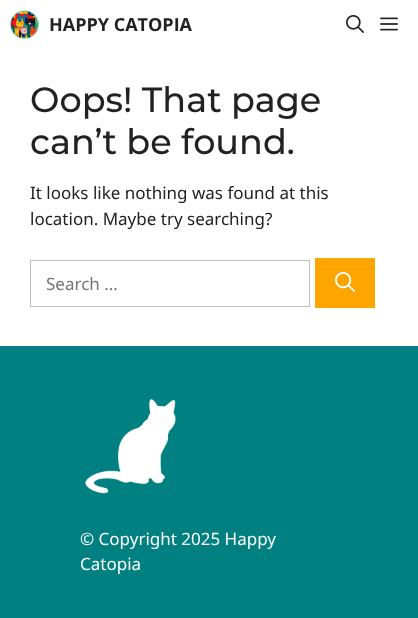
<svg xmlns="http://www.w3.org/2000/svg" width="418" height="618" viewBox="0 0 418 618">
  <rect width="100%" height="100%" fill="#ffffff"/>
  <image x="10" y="10" width="29" height="29" href="img1.png"/>
  <text x="49" y="31" font-family="Open Sans" font-size="18" font-weight="bold" fill="#222222">HAPPY CATOPIA</text>
  <image x="346" y="15" width="18" height="18" href="img2.png"/>
  <image x="380" y="17" width="18" height="14" href="img3.png"/>
  <text x="30" y="112" font-family="Montserrat" font-size="35" font-weight="500" fill="#222222">Oops! That page</text>
  <text x="30" y="154" font-family="Montserrat" font-size="35" font-weight="500" fill="#222222">can’t be found.</text>
  <text x="30" y="199" font-family="Noto Sans" font-size="17" fill="#222222">It looks like nothing was found at this</text>
  <text x="30" y="225" font-family="Noto Sans" font-size="17" fill="#222222">location. Maybe try searching?</text>
  <rect x="30.5" y="260.5" width="279" height="46" fill="none" stroke="#bfbfbf"/>
  <text x="46" y="290" font-family="Noto Sans" font-size="17" fill="#757575">Search …</text>
  <rect x="315" y="258" width="60" height="50" fill="#ffa500"/>
  <image x="335" y="272" width="20" height="20" href="img4.png"/>
  <rect x="0" y="346" width="418" height="272" fill="#008080"/>
  <image x="85" y="399" width="91" height="95" href="img5.png"/>
  <text x="80" y="545" font-family="Noto Sans" font-size="17" fill="#ffffff">© Copyright 2025 Happy</text>
  <text x="80" y="570" font-family="Noto Sans" font-size="17" fill="#ffffff">Catopia</text>
</svg>
